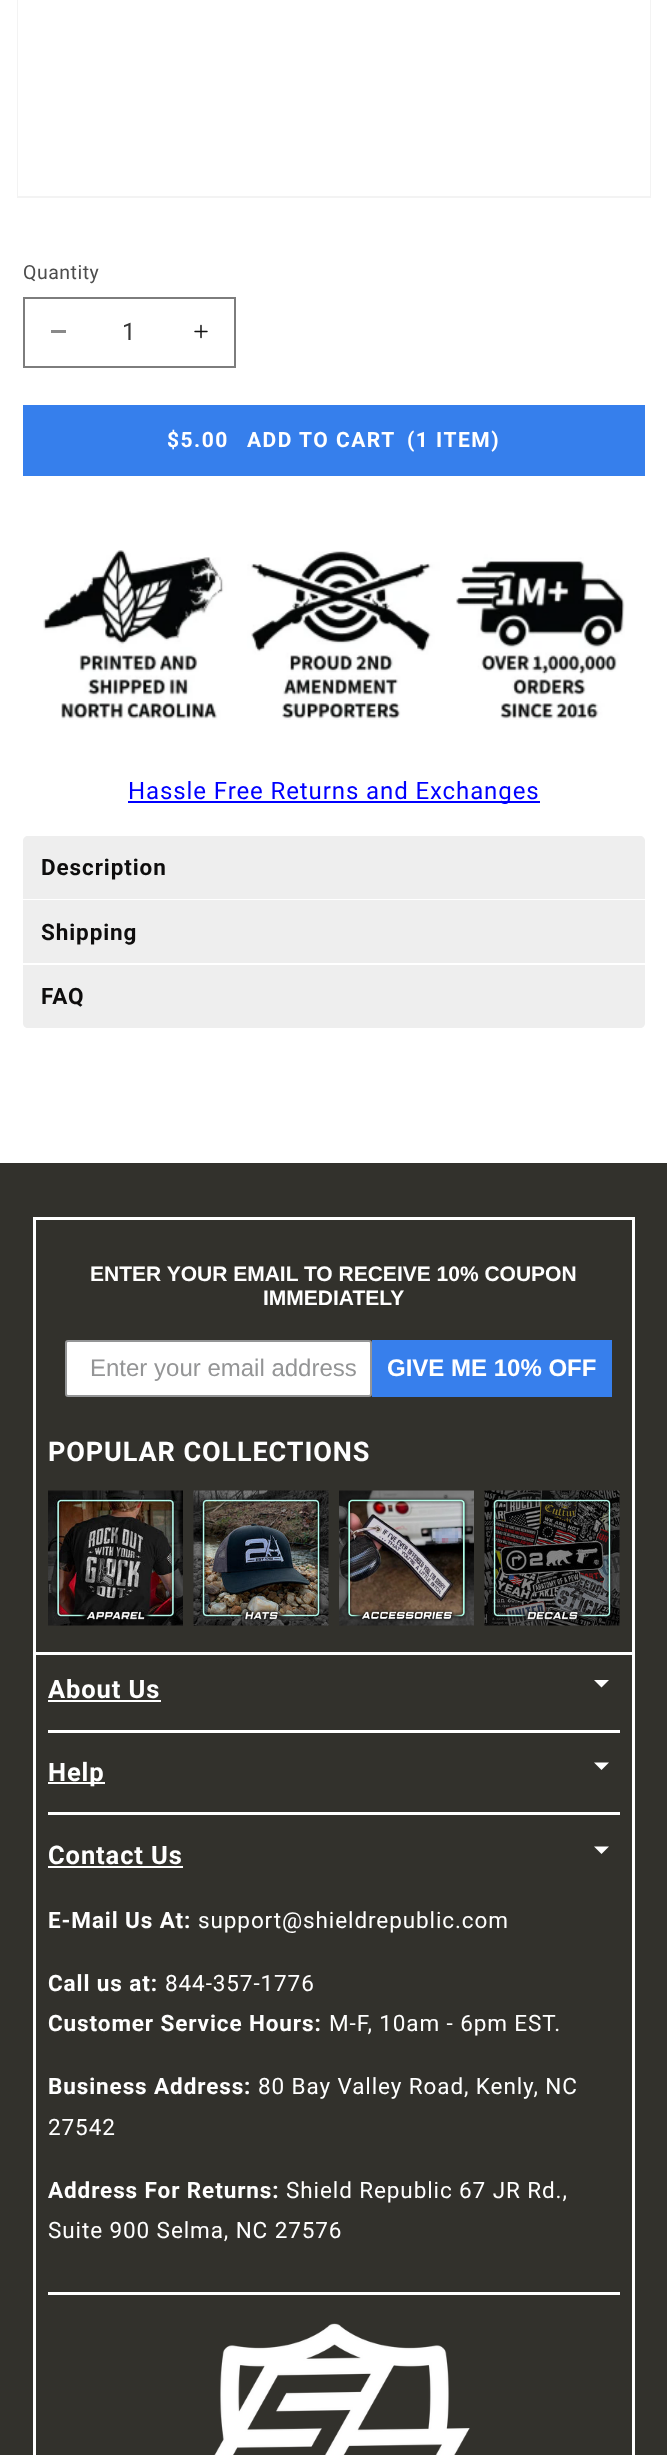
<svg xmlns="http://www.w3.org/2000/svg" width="667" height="2455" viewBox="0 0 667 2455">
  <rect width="100%" height="100%" fill="#ffffff"/>
  <rect x="18" y="-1" width="632" height="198" fill="none" stroke="#f3f3f3" stroke-width="2"/>
  <rect x="18" y="0" width="632" height="196" fill="#ffffff"/>
  <text x="23" y="279" font-family="Roboto" font-size="19.5" letter-spacing="0.5" fill="#4d4d4d">Quantity</text>
  <rect x="51" y="330" width="15" height="3" fill="#898989"/>
  <image x="194" y="324" width="14" height="15" href="img1.png"/>
  <rect x="24" y="298" width="211" height="69" fill="none" stroke="#7d7d7d" stroke-width="2"/>
  <text x="122" y="340" font-family="Roboto" font-size="24" fill="#363636">1</text>
  <rect x="23" y="405" width="622" height="71" fill="#367fec"/>
  <text x="167" y="447" font-family="Roboto" font-size="21" font-weight="bold" letter-spacing="1.5" fill="#ffffff">$5.00</text>
  <text x="247" y="447" font-family="Roboto" font-size="21" font-weight="bold" letter-spacing="1.5" fill="#ffffff">ADD TO CART</text>
  <text x="407" y="447" font-family="Roboto" font-size="21" font-weight="bold" letter-spacing="1.5" fill="#ffffff">(1 ITEM)</text>
  <image x="43" y="550" width="582" height="170" href="img2.png"/>
  <rect x="128" y="801" width="412" height="2" fill="#0000ff"/>
  <text x="128" y="799" font-family="Roboto" font-size="24" letter-spacing="0.9" fill="#0000ff">Hassle Free Returns and Exchanges</text>
  <path d="M28 836H640C643 836 645 838 645 841V899H23V841C23 838 25 836 28 836Z" fill="#eeeeee"/>
  <text x="41" y="875" font-family="Roboto" font-size="22.5" font-weight="bold" letter-spacing="0.9" fill="#0e0d0d">Description</text>
  <rect x="23" y="900" width="622" height="63" fill="#eeeeee"/>
  <text x="41" y="940" font-family="Roboto" font-size="22.5" font-weight="bold" letter-spacing="0.9" fill="#0e0d0d">Shipping</text>
  <path d="M23 965H645V1023C645 1026 643 1028 640 1028H28C25 1028 23 1026 23 1023Z" fill="#eeeeee"/>
  <text x="41" y="1004" font-family="Roboto" font-size="22.5" font-weight="bold" letter-spacing="0.9" fill="#0e0d0d">FAQ</text>
  <rect x="0" y="1163" width="667" height="1292" fill="#32312c"/>
  <rect x="33" y="1217" width="602" height="3" fill="#ffffff"/>
  <rect x="632" y="1217" width="3" height="435" fill="#ffffff"/>
  <rect x="33" y="1217" width="3" height="435" fill="#ffffff"/>
  <text x="90" y="1281" font-family="Liberation Sans" font-size="21" font-weight="bold" fill="#ffffff">ENTER YOUR EMAIL TO RECEIVE 10% COUPON</text>
  <text x="263" y="1305" font-family="Liberation Sans" font-size="21" font-weight="bold" fill="#ffffff">IMMEDIATELY</text>
  <rect x="66" y="1341" width="305" height="55" rx="2" fill="#ffffff" stroke="#949596" stroke-width="2"/>
  <text x="90" y="1376" font-family="Liberation Sans" font-size="24" fill="#949596">Enter your email address</text>
  <rect x="372" y="1340" width="240" height="57" fill="#377fec"/>
  <text x="387" y="1376" font-family="Liberation Sans" font-size="24" font-weight="bold" fill="#ffffff">GIVE ME 10% OFF</text>
  <text x="48" y="1461" font-family="Roboto" font-size="27" font-weight="bold" letter-spacing="0.9" fill="#ffffff">POPULAR COLLECTIONS</text>
  <image x="48" y="1490" width="135" height="136" href="img3.png"/>
  <image x="193" y="1490" width="136" height="136" href="img4.png"/>
  <image x="339" y="1490" width="135" height="136" href="img5.png"/>
  <image x="484" y="1490" width="136" height="136" href="img6.png"/>
  <rect x="34.5" y="1653.5" width="599" height="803" fill="none" stroke="#ffffff" stroke-width="3"/>
  <rect x="48" y="1730" width="572" height="3" fill="#ffffff"/>
  <text x="48" y="1698" font-family="Roboto" font-size="25.5" font-weight="bold" letter-spacing="0.9" fill="#ffffff">About Us</text>
  <rect x="48" y="1700" width="113" height="2" fill="#ffffff"/>
  <path d="M594 1680H609L601.5 1687.5Z" fill="#ffffff"/>
  <rect x="48" y="1812" width="572" height="3" fill="#ffffff"/>
  <rect x="48" y="1782" width="57" height="2" fill="#ffffff"/>
  <text x="48" y="1781" font-family="Roboto" font-size="25.5" font-weight="bold" letter-spacing="0.9" fill="#ffffff">Help</text>
  <path d="M594 1762.5H609L601.5 1770Z" fill="#ffffff"/>
  <rect x="48" y="2292" width="572" height="3" fill="#ffffff"/>
  <text x="48" y="1864" font-family="Roboto" font-size="25.5" font-weight="bold" letter-spacing="0.9" fill="#ffffff">Contact Us</text>
  <rect x="48" y="1866" width="135" height="2" fill="#ffffff"/>
  <path d="M594 1846.5H609L601.5 1854Z" fill="#ffffff"/>
  <text x="48" y="1928" font-family="Roboto" font-size="22.5" font-weight="bold" letter-spacing="0.9" fill="#ffffff">E-Mail Us At:</text>
  <text x="198" y="1928" font-family="Roboto" font-size="22.5" letter-spacing="0.9" fill="#ffffff">support@shieldrepublic.com</text>
  <text x="48" y="1991" font-family="Roboto" font-size="22.5" font-weight="bold" letter-spacing="0.9" fill="#ffffff">Call us at:</text>
  <text x="165" y="1991" font-family="Roboto" font-size="22.5" letter-spacing="0.9" fill="#ffffff">844-357-1776</text>
  <text x="48" y="2031" font-family="Roboto" font-size="22.5" font-weight="bold" letter-spacing="0.9" fill="#ffffff">Customer Service Hours:</text>
  <text x="329" y="2031" font-family="Roboto" font-size="22.5" letter-spacing="0.9" fill="#ffffff">M-F, 10am - 6pm EST.</text>
  <text x="48" y="2094" font-family="Roboto" font-size="22.5" font-weight="bold" letter-spacing="0.9" fill="#ffffff">Business Address:</text>
  <text x="258" y="2094" font-family="Roboto" font-size="22.5" letter-spacing="0.9" fill="#ffffff">80 Bay Valley Road, Kenly, NC</text>
  <text x="48" y="2135" font-family="Roboto" font-size="22.5" letter-spacing="0.9" fill="#ffffff">27542</text>
  <text x="48" y="2198" font-family="Roboto" font-size="22.5" font-weight="bold" letter-spacing="0.9" fill="#ffffff">Address For Returns:</text>
  <text x="286" y="2198" font-family="Roboto" font-size="22.5" letter-spacing="0.9" fill="#ffffff">Shield Republic 67 JR Rd.,</text>
  <text x="48" y="2238" font-family="Roboto" font-size="22.5" letter-spacing="0.9" fill="#ffffff">Suite 900 Selma, NC 27576</text>
  <image x="214" y="2323" width="256" height="132" href="img7.png"/>
</svg>
